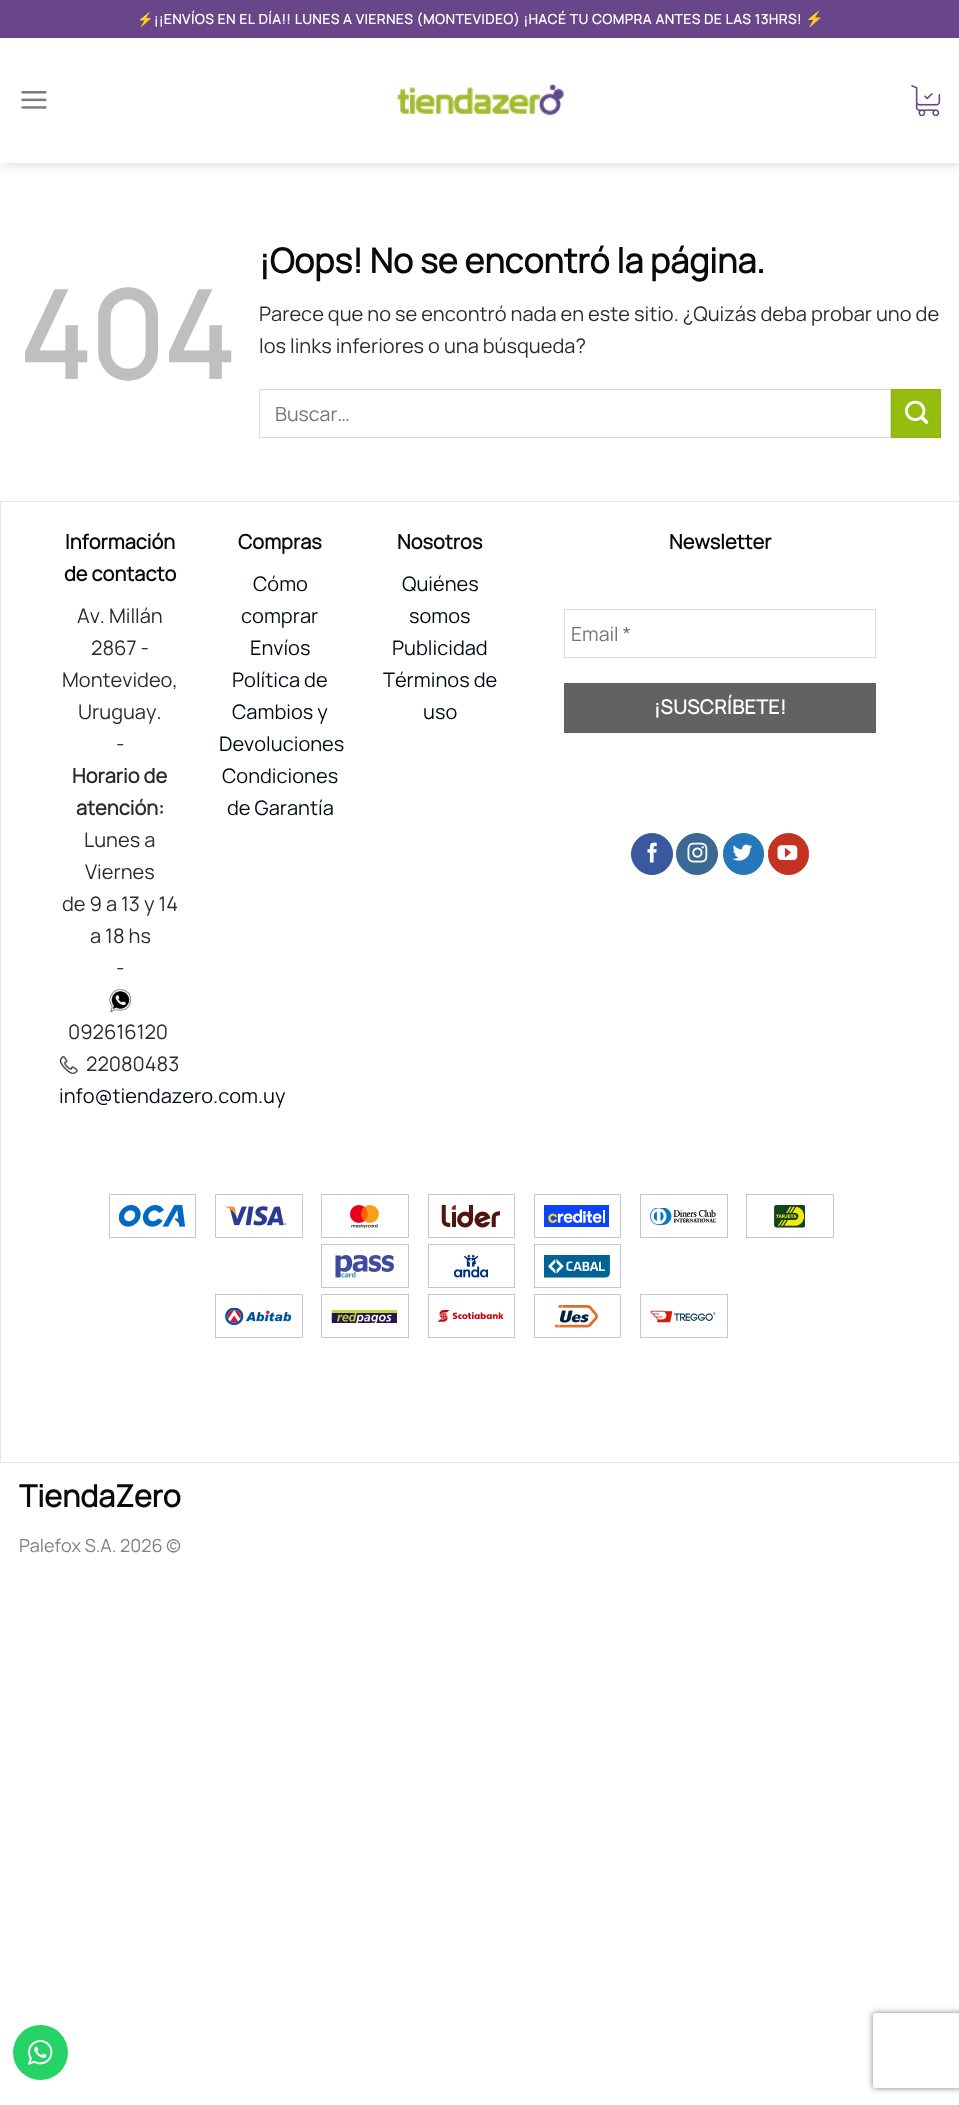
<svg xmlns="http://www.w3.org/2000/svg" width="959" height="2105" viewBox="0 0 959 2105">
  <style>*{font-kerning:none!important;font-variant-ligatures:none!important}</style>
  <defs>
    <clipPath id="clip1"><path d="M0 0H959V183H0ZM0 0H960V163H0Z" clip-rule="evenodd"/></clipPath>
    <filter id="blur1" x="-50%" y="-200%" width="200%" height="500%"><feGaussianBlur stdDeviation="6"/></filter>
    <clipPath id="clip2"><path d="M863 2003H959V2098H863ZM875.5 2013H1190.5C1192 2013 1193 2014 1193 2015.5V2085.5C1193 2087 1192 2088 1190.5 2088H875.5C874 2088 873 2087 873 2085.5V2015.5C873 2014 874 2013 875.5 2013Z" clip-rule="evenodd"/></clipPath>
    <filter id="blur2" x="-50%" y="-200%" width="200%" height="500%"><feGaussianBlur stdDeviation="3"/></filter>
  </defs>
  <rect width="100%" height="100%" fill="#ffffff"/>
  <g clip-path="url(#clip1)">
    <rect x="1" y="1" width="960" height="163" fill="#000000" fill-opacity="0.15" filter="url(#blur1)"/>
  </g>
  <rect x="0" y="0" width="959" height="38" fill="#684689"/>
  <text x="137" y="24" font-family="Noto Color Emoji" font-size="13.5" font-weight="bold" letter-spacing="0.68" fill="#ffffff">⚡</text>
  <text x="154" y="24" font-family="Manrope" font-size="13.5" font-weight="bold" letter-spacing="0.68" fill="#ffffff">¡¡ENVÍOS EN EL DÍA!! LUNES A VIERNES (MONTEVIDEO) ¡HACÉ TU COMPRA ANTES DE LAS 13HRS!</text>
  <text x="805" y="24" font-family="Noto Color Emoji" font-size="15" fill="#ffffff">⚡</text>
  <image x="21" y="91" width="26" height="18" href="img1.png"/>
  <image x="397" y="83" width="167" height="33" href="img2.png"/>
  <image x="911" y="85" width="30" height="31" href="img3.png"/>
  <rect x="0" y="162" width="959" height="1" fill="#ffffff" fill-opacity="0.9"/>
  <text x="19" y="379" font-family="Manrope" font-size="120" font-weight="bold" fill="#bfbfbf">404</text>
  <text x="259" y="273" font-family="Manrope" font-size="34" font-weight="bold" fill="#0a0a0a">¡Oops! No se encontró la página.</text>
  <text x="259" y="321" font-family="Manrope" font-size="20" font-weight="200" fill="#2b2b2b">Parece que no se encontró nada en este sitio. ¿Quizás deba probar uno de</text>
  <text x="259" y="353" font-family="Manrope" font-size="20" font-weight="200" fill="#2b2b2b">los links inferiores o una búsqueda?</text>
  <rect x="259.5" y="389.5" width="631" height="48" fill="none" stroke="#dddddd"/>
  <text x="275" y="421" font-family="Manrope" font-size="19.5" font-weight="200" fill="#757575">Buscar…</text>
  <rect x="891.5" y="389.5" width="49" height="48" fill="#95bd0d" stroke="#8eb40c"/>
  <image x="905" y="400" width="24" height="24" href="img4.png"/>
  <rect x="0.5" y="501.5" width="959" height="961" fill="none" stroke="#e7e7e7"/>
  <text x="65" y="549" font-family="Manrope" font-size="20" font-weight="bold" fill="#0a0a0a">Información</text>
  <text x="64" y="581" font-family="Manrope" font-size="20" font-weight="bold" fill="#0a0a0a">de contacto</text>
  <text x="77" y="623" font-family="Manrope" font-size="20" font-weight="200" fill="#2b2b2b">Av. Millán</text>
  <text x="91" y="655" font-family="Manrope" font-size="20" font-weight="200" fill="#2b2b2b">2867 -</text>
  <text x="62" y="687" font-family="Manrope" font-size="20" font-weight="200" fill="#2b2b2b">Montevideo,</text>
  <text x="78" y="719" font-family="Manrope" font-size="20" font-weight="200" fill="#2b2b2b">Uruguay.</text>
  <text x="116" y="751" font-family="Manrope" font-size="20" font-weight="200" fill="#2b2b2b">-</text>
  <text x="72" y="783" font-family="Manrope" font-size="20" font-weight="bold" fill="#2b2b2b">Horario de</text>
  <text x="76" y="815" font-family="Manrope" font-size="20" font-weight="bold" fill="#2b2b2b">atención:</text>
  <text x="84" y="847" font-family="Manrope" font-size="20" font-weight="200" fill="#2b2b2b">Lunes a</text>
  <text x="85" y="879" font-family="Manrope" font-size="20" font-weight="200" fill="#2b2b2b">Viernes</text>
  <text x="62" y="911" font-family="Manrope" font-size="20" font-weight="200" fill="#2b2b2b">de 9 a 13 y 14</text>
  <text x="90" y="943" font-family="Manrope" font-size="20" font-weight="200" fill="#2b2b2b">a 18 hs</text>
  <text x="116" y="975" font-family="Manrope" font-size="20" font-weight="200" fill="#2b2b2b">-</text>
  <image x="109" y="988" width="22" height="25" href="img5.png"/>
  <text x="68" y="1039" font-family="Manrope" font-size="20" font-weight="200" fill="#2b2b2b">092616120</text>
  <image x="60" y="1056" width="18" height="18" href="img6.png"/>
  <text x="86" y="1071" font-family="Manrope" font-size="20" font-weight="200" fill="#2b2b2b">22080483</text>
  <text x="59" y="1103" font-family="Manrope" font-size="20" font-weight="200" fill="#000914">info@tiendazero.com.uy</text>
  <text x="238" y="549" font-family="Manrope" font-size="20" font-weight="bold" fill="#0a0a0a">Compras</text>
  <text x="253" y="591" font-family="Manrope" font-size="20" font-weight="200" fill="#000914">Cómo</text>
  <text x="241" y="623" font-family="Manrope" font-size="20" font-weight="200" fill="#000914">comprar</text>
  <text x="250" y="655" font-family="Manrope" font-size="20" font-weight="200" fill="#000914">Envíos</text>
  <text x="232" y="687" font-family="Manrope" font-size="20" font-weight="200" fill="#000914">Política de</text>
  <text x="232" y="719" font-family="Manrope" font-size="20" font-weight="200" fill="#000914">Cambios y</text>
  <text x="219" y="751" font-family="Manrope" font-size="20" font-weight="200" fill="#000914">Devoluciones</text>
  <text x="222" y="783" font-family="Manrope" font-size="20" font-weight="200" fill="#000914">Condiciones</text>
  <text x="227" y="815" font-family="Manrope" font-size="20" font-weight="200" fill="#000914">de Garantía</text>
  <text x="397" y="549" font-family="Manrope" font-size="20" font-weight="bold" fill="#0a0a0a">Nosotros</text>
  <text x="402" y="591" font-family="Manrope" font-size="20" font-weight="200" fill="#000914">Quiénes</text>
  <text x="409" y="623" font-family="Manrope" font-size="20" font-weight="200" fill="#000914">somos</text>
  <text x="392" y="655" font-family="Manrope" font-size="20" font-weight="200" fill="#000914">Publicidad</text>
  <text x="383" y="687" font-family="Manrope" font-size="20" font-weight="200" fill="#000914">Términos de</text>
  <text x="423" y="719" font-family="Manrope" font-size="20" font-weight="200" fill="#000914">uso</text>
  <text x="669" y="549" font-family="Manrope" font-size="20" font-weight="bold" fill="#0a0a0a">Newsletter</text>
  <rect x="564.5" y="609.5" width="311" height="48" fill="none" stroke="#dddddd"/>
  <text x="571" y="641" font-family="Manrope" font-size="19.5" font-weight="200" fill="#757575">Email *</text>
  <rect x="564" y="683" width="312" height="50" fill="#626262"/>
  <text x="654" y="714" font-family="Manrope" font-size="19.5" font-weight="bold" letter-spacing="0.5" fill="#ffffff">¡SUSCRÍBETE!</text>
  <circle cx="652" cy="854" r="20.5" fill="#3a589d" stroke="#3a589d"/>
  <image x="647" y="842" width="10" height="21" href="img7.png"/>
  <circle cx="697" cy="854" r="20.5" fill="#3b6994" stroke="#3b6994"/>
  <image x="687" y="842" width="21" height="21" href="img8.png"/>
  <rect x="723.5" y="833.5" width="40" height="41" rx="20" fill="#2478ba" stroke="#2478ba"/>
  <image x="732" y="844" width="21" height="17" href="img9.png"/>
  <rect x="768.5" y="833.5" width="40" height="41" rx="20" fill="#c33223" stroke="#c33223"/>
  <image x="777" y="845" width="21" height="15" href="img10.png"/>
  <rect x="109.5" y="1194.5" width="86" height="43" fill="none" stroke="#c8c6cb"/>
  <image x="119" y="1205" width="66" height="22" href="img11.png"/>
  <rect x="215.5" y="1194.5" width="87" height="43" fill="none" stroke="#c8c6cb"/>
  <image x="225" y="1206" width="62" height="20" href="img12.png"/>
  <rect x="321.5" y="1194.5" width="87" height="43" fill="none" stroke="#c8c6cb"/>
  <image x="350" y="1205" width="29" height="23" href="img13.png"/>
  <rect x="428.5" y="1194.5" width="86" height="43" fill="none" stroke="#c8c6cb"/>
  <image x="441" y="1205" width="59" height="23" href="img14.png"/>
  <rect x="534.5" y="1194.5" width="86" height="43" fill="none" stroke="#c8c6cb"/>
  <image x="544" y="1205" width="65" height="22" href="img15.png"/>
  <rect x="640.5" y="1194.5" width="87" height="43" fill="none" stroke="#c8c6cb"/>
  <image x="650" y="1208" width="66" height="17" href="img16.png"/>
  <rect x="746.5" y="1194.5" width="87" height="43" fill="none" stroke="#c8c6cb"/>
  <image x="774" y="1205" width="31" height="23" href="img17.png"/>
  <rect x="321.5" y="1244.5" width="87" height="43" fill="none" stroke="#c8c6cb"/>
  <image x="335" y="1255" width="59" height="23" href="img18.png"/>
  <rect x="428.5" y="1244.5" width="86" height="43" fill="none" stroke="#c8c6cb"/>
  <image x="454" y="1255" width="34" height="23" href="img19.png"/>
  <rect x="534.5" y="1244.5" width="86" height="43" fill="none" stroke="#c8c6cb"/>
  <image x="544" y="1255" width="66" height="23" href="img20.png"/>
  <rect x="215.5" y="1294.5" width="87" height="43" fill="none" stroke="#c8c6cb"/>
  <image x="225" y="1308" width="66" height="17" href="img21.png"/>
  <rect x="321.5" y="1294.5" width="87" height="43" fill="none" stroke="#c8c6cb"/>
  <image x="331" y="1310" width="66" height="13" href="img22.png"/>
  <rect x="428.5" y="1294.5" width="86" height="43" fill="none" stroke="#c8c6cb"/>
  <image x="438" y="1310" width="66" height="12" href="img23.png"/>
  <rect x="534.5" y="1294.5" width="86" height="43" fill="none" stroke="#c8c6cb"/>
  <image x="555" y="1305" width="43" height="23" href="img24.png"/>
  <rect x="640.5" y="1294.5" width="87" height="43" fill="none" stroke="#c8c6cb"/>
  <image x="650" y="1310" width="66" height="13" href="img25.png"/>
  <text x="19" y="1507" font-family="Manrope" font-size="30.5" font-weight="bold" fill="#0a0a0a">TiendaZero</text>
  <text x="19" y="1552" font-family="Manrope" font-size="18" font-weight="200" fill="#808080">Palefox S.A. 2026 ©</text>
  <circle cx="40.5" cy="2052.5" r="27.5" fill="#25d366"/>
  <image x="28" y="2040" width="25" height="25" href="img26.png"/>
  <g clip-path="url(#clip2)">
    <rect x="873" y="2013" width="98" height="75" rx="2.5" fill="#808080" filter="url(#blur2)"/>
  </g>
</svg>
